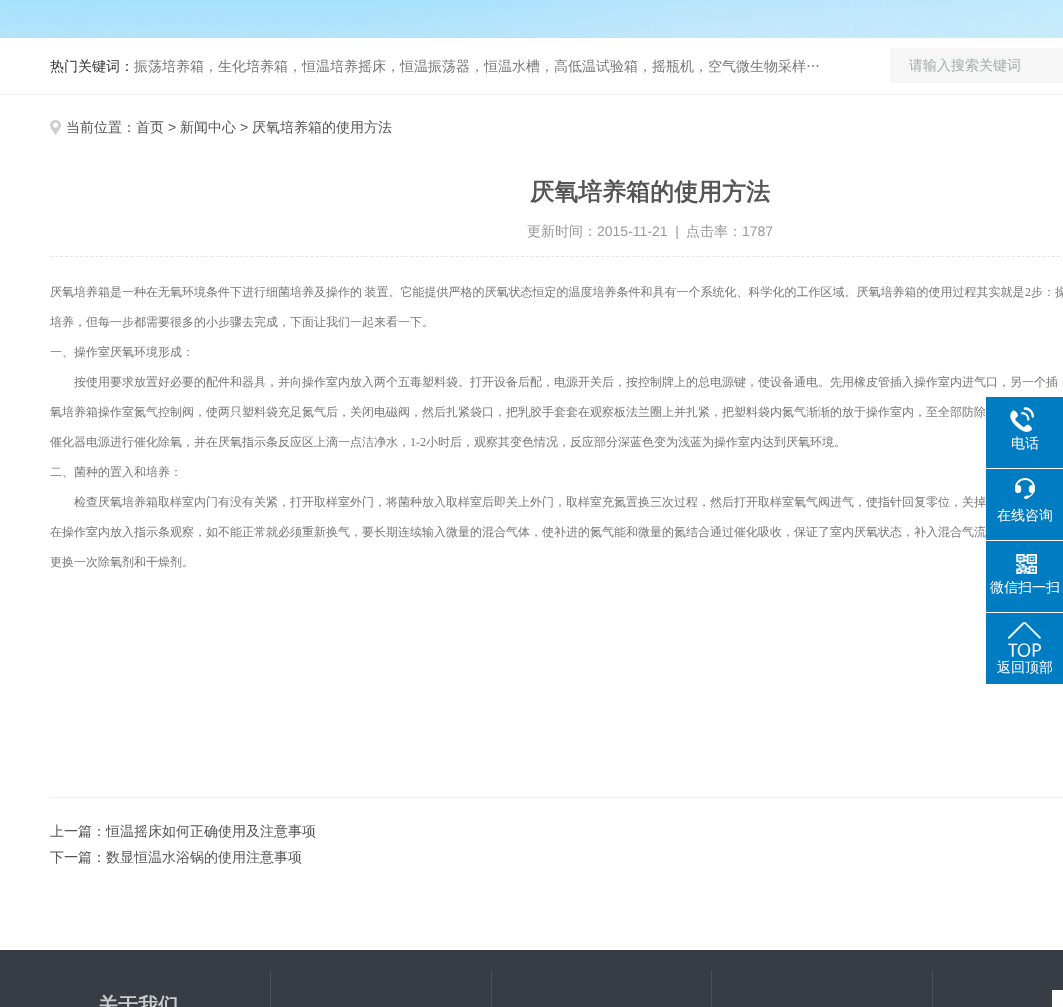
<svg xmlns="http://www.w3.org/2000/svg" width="1063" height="1007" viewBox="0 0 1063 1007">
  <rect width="100%" height="100%" fill="#ffffff"/>
  <image x="0" y="0" width="1063" height="38" href="img1.png"/>
  <rect x="0" y="94" width="1063" height="1" fill="#f1f1f1"/>
  <text x="50" y="71" font-family="WenQuanYi Zen Hei" font-size="14" font-weight="500" fill="#333333">热门关键词：</text>
  <text x="134" y="71" font-family="WenQuanYi Zen Hei" font-size="14" font-weight="500" fill="#777777">振荡培养箱，生化培养箱，恒温培养摇床，恒温振荡器，恒温水槽，高低温试验箱，摇瓶机，空气微生物采样…</text>
  <rect x="890" y="48" width="173" height="35" fill="#f6f6f6"/>
  <text x="909" y="70" font-family="WenQuanYi Zen Hei" font-size="14" font-weight="500" fill="#a4ada9">请输入搜索关键词</text>
  <image x="50" y="120" width="11" height="15" href="img2.png"/>
  <text x="66" y="132" font-family="WenQuanYi Zen Hei" font-size="14" font-weight="500" fill="#555555">当前位置：首页</text>
  <text x="168" y="132" font-family="Liberation Sans" font-size="14" fill="#555555">&gt;</text>
  <text x="180" y="132" font-family="WenQuanYi Zen Hei" font-size="14" font-weight="500" fill="#555555">新闻中心</text>
  <text x="240" y="132" font-family="Liberation Sans" font-size="14" fill="#555555">&gt;</text>
  <text x="252" y="132" font-family="WenQuanYi Zen Hei" font-size="14" font-weight="500" fill="#555555">厌氧培养箱的使用方法</text>
  <text x="530" y="200" font-family="WenQuanYi Zen Hei" font-size="24" font-weight="bold" fill="#555555">厌氧培养箱的使用方法</text>
  <path d="M50 256.5H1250" fill="none" stroke="#e6e6e6" stroke-dasharray="3 2.01"/>
  <text x="527" y="236" font-family="WenQuanYi Zen Hei" font-size="14" font-weight="500" fill="#999999">更新时间：</text>
  <text x="597" y="236" font-family="Liberation Sans" font-size="14" fill="#999999" xml:space="preserve">2015-11-21  |</text>
  <text x="686" y="236" font-family="WenQuanYi Zen Hei" font-size="14" font-weight="500" fill="#999999">点击率：</text>
  <text x="742" y="236" font-family="Liberation Sans" font-size="14" fill="#999999">1787</text>
  <text x="50" y="296" word-spacing="-1" font-family="WenQuanYi Zen Hei" font-size="12" font-weight="500" fill="#777777">厌氧培养箱是一种在无氧环境条件下进行细菌培养及操作的 装置。它能提供严格的厌氧状态恒定的温度培养条件和具有一个系统化、科学化的工作区域。厌氧培养箱的使用过程其实就是</text>
  <text x="1025" y="296" font-family="Liberation Serif" font-size="12" fill="#777777">2</text>
  <text x="1031" y="296" font-family="WenQuanYi Zen Hei" font-size="12" font-weight="500" fill="#777777">步：操</text>
  <text x="50" y="326" font-family="WenQuanYi Zen Hei" font-size="12" font-weight="500" fill="#777777">培养，但每一步都需要很多的小步骤去完成，下面让我们一起来看一下。</text>
  <text x="50" y="356" font-family="WenQuanYi Zen Hei" font-size="12" font-weight="500" fill="#777777">一、操作室厌氧环境形成：</text>
  <text x="74" y="386" font-family="WenQuanYi Zen Hei" font-size="12" font-weight="500" fill="#777777">按使用要求放置好必要的配件和器具，并向操作室内放入两个五毒塑料袋。打开设备后配，电源开关后，按控制牌上的总电源键，使设备通电。先用橡皮管插入操作室内进气口，另一个插</text>
  <text x="50" y="416" font-family="WenQuanYi Zen Hei" font-size="12" font-weight="500" fill="#777777">氧培养箱操作室氮气控制阀，使两只塑料袋充足氮气后，关闭电磁阀，然后扎紧袋口，把乳胶手套套在观察板法兰圈上并扎紧，把塑料袋内氮气渐渐的放于操作室内，至全部防除</text>
  <text x="50" y="446" font-family="WenQuanYi Zen Hei" font-size="12" font-weight="500" fill="#777777">催化器电源进行催化除氧，并在厌氧指示条反应区上滴一点洁净水，</text>
  <text x="410" y="446" font-family="Liberation Serif" font-size="12" fill="#777777">1-2</text>
  <text x="426" y="446" font-family="WenQuanYi Zen Hei" font-size="12" font-weight="500" fill="#777777">小时后，观察其变色情况，反应部分深蓝色变为浅蓝为操作室内达到厌氧环境。</text>
  <text x="50" y="476" font-family="WenQuanYi Zen Hei" font-size="12" font-weight="500" fill="#777777">二、菌种的置入和培养：</text>
  <text x="74" y="506" font-family="WenQuanYi Zen Hei" font-size="12" font-weight="500" fill="#777777">检查厌氧培养箱取样室内门有没有关紧，打开取样室外门，将菌种放入取样室后即关上外门，取样室充氮置换三次过程，然后打开取样室氧气阀进气，使指针回复零位，关掉</text>
  <text x="50" y="536" font-family="WenQuanYi Zen Hei" font-size="12" font-weight="500" fill="#777777">在操作室内放入指示条观察，如不能正常就必须重新换气，要长期连续输入微量的混合气体，使补进的氮气能和微量的氮结合通过催化吸收，保证了室内厌氧状态，补入混合气流</text>
  <text x="50" y="566" font-family="WenQuanYi Zen Hei" font-size="12" font-weight="500" fill="#777777">更换一次除氧剂和干燥剂。</text>
  <rect x="50" y="797" width="1013" height="1" fill="#f1f1f1"/>
  <text x="50" y="836" font-family="WenQuanYi Zen Hei" font-size="14" font-weight="500" fill="#555555">上一篇：恒温摇床如何正确使用及注意事项</text>
  <text x="50" y="862" font-family="WenQuanYi Zen Hei" font-size="14" font-weight="500" fill="#555555">下一篇：数显恒温水浴锅的使用注意事项</text>
  <rect x="986" y="397" width="77" height="71" fill="#007cc2"/>
  <image x="1010" y="407" width="24" height="25" href="img3.png"/>
  <text x="1011" y="448" font-family="WenQuanYi Zen Hei" font-size="14" font-weight="500" fill="#ffffff">电话</text>
  <rect x="986" y="469" width="77" height="71" fill="#007cc2"/>
  <image x="1015" y="478" width="20" height="21" href="img4.png"/>
  <text x="997" y="520" font-family="WenQuanYi Zen Hei" font-size="14" font-weight="500" fill="#ffffff">在线咨询</text>
  <rect x="986" y="541" width="77" height="71" fill="#007cc2"/>
  <image x="1016" y="554" width="21" height="20" href="img5.png"/>
  <text x="990" y="592" font-family="WenQuanYi Zen Hei" font-size="14" font-weight="500" fill="#ffffff">微信扫一扫</text>
  <rect x="986" y="613" width="77" height="71" fill="#007cc2"/>
  <image x="1008" y="622" width="33" height="35" href="img6.png"/>
  <text x="997" y="672" font-family="WenQuanYi Zen Hei" font-size="14" font-weight="500" fill="#ffffff">返回顶部</text>
  <rect x="0" y="950" width="1063" height="57" fill="#383d45"/>
  <rect x="270" y="970" width="1" height="37" fill="#4c5058"/>
  <text x="98" y="1012" font-family="WenQuanYi Zen Hei" font-size="20" font-weight="bold" fill="#cccccc">关于我们</text>
  <rect x="491" y="970" width="1" height="37" fill="#4c5058"/>
  <rect x="711" y="970" width="1" height="37" fill="#4c5058"/>
  <rect x="932" y="970" width="1" height="37" fill="#4c5058"/>
  <image x="1052" y="990" width="11" height="17" href="img7.png"/>
</svg>
